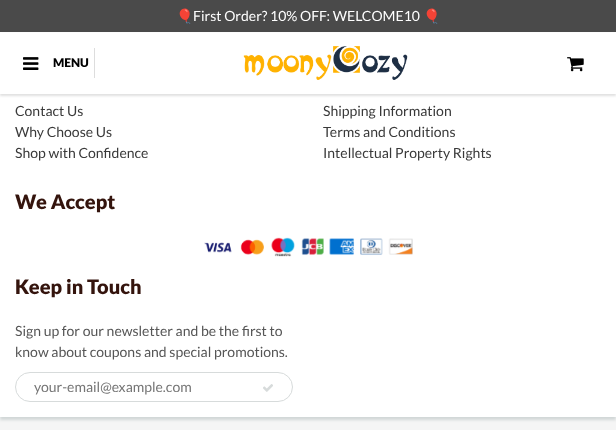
<svg xmlns="http://www.w3.org/2000/svg" width="616" height="430" viewBox="0 0 616 430">
  <defs>
    <clipPath id="clip1"><rect x="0" y="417" width="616" height="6"/></clipPath>
    <filter id="blur1" x="-50%" y="-200%" width="200%" height="500%"><feGaussianBlur stdDeviation="1.5"/></filter>
    <filter id="blur2" x="-50%" y="-200%" width="200%" height="500%"><feGaussianBlur stdDeviation="1"/></filter>
  </defs>
  <rect width="100%" height="100%" fill="#ffffff"/>
  <rect x="0" y="417" width="616" height="13" fill="#f5f5f5"/>
  <g clip-path="url(#clip1)">
    <rect x="0" y="-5" width="616" height="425" fill="#d1d7d7" filter="url(#blur1)"/>
  </g>
  <rect x="0" y="0" width="616" height="32" fill="#4a4a4a"/>
  <text x="176" y="21" font-family="Noto Color Emoji" font-size="14" fill="#ffffff">🎈</text>
  <text x="193" y="21" font-family="Lato" font-size="14" fill="#ffffff">First Order? 10% OFF: WELCOME10</text>
  <text x="423" y="21" font-family="Noto Color Emoji" font-size="14" fill="#ffffff">🎈</text>
  <rect x="0" y="34" width="616" height="62" fill="#0b191c" fill-opacity="0.12" filter="url(#blur2)"/>
  <rect x="0" y="33" width="616" height="61" fill="#ffffff"/>
  <image x="23" y="57" width="16" height="13" href="img1.png"/>
  <rect x="94" y="48" width="1" height="30" fill="#dddddd"/>
  <text x="53" y="67" font-family="Lato" font-size="12" font-weight="900" fill="#000000">MENU</text>
  <image x="243" y="46" width="165" height="34" href="img2.png"/>
  <image x="567" y="57" width="17" height="15" href="img3.png"/>
  <text x="15" y="116" font-family="Lato" font-size="14" fill="#393939">Contact Us</text>
  <text x="15" y="137" font-family="Lato" font-size="14" fill="#393939">Why Choose Us</text>
  <text x="15" y="158" font-family="Lato" font-size="14" fill="#393939">Shop with Confidence</text>
  <text x="323" y="116" font-family="Lato" font-size="14" fill="#393939">Shipping Information</text>
  <text x="323" y="137" font-family="Lato" font-size="14" fill="#393939">Terms and Conditions</text>
  <text x="323" y="158" font-family="Lato" font-size="14" fill="#393939">Intellectual Property Rights</text>
  <text x="15" y="209" font-family="Lato" font-size="20" font-weight="900" fill="#34140d">We Accept</text>
  <image x="204" y="237" width="209" height="20" href="img4.png"/>
  <text x="15" y="294" font-family="Lato" font-size="20" font-weight="900" fill="#34140d">Keep in Touch</text>
  <text x="15" y="336" font-family="Lato" font-size="14" fill="#565656">Sign up for our newsletter and be the first to</text>
  <text x="15" y="357" font-family="Lato" font-size="14" fill="#565656">know about coupons and special promotions.</text>
  <rect x="15.5" y="372.5" width="277" height="29" rx="14.5" fill="none" stroke="#d7dbdb"/>
  <text x="34" y="392" font-family="Lato" font-size="14" fill="#757575">your-email@example.com</text>
  <image x="263" y="384" width="10" height="8" href="img5.png"/>
</svg>
